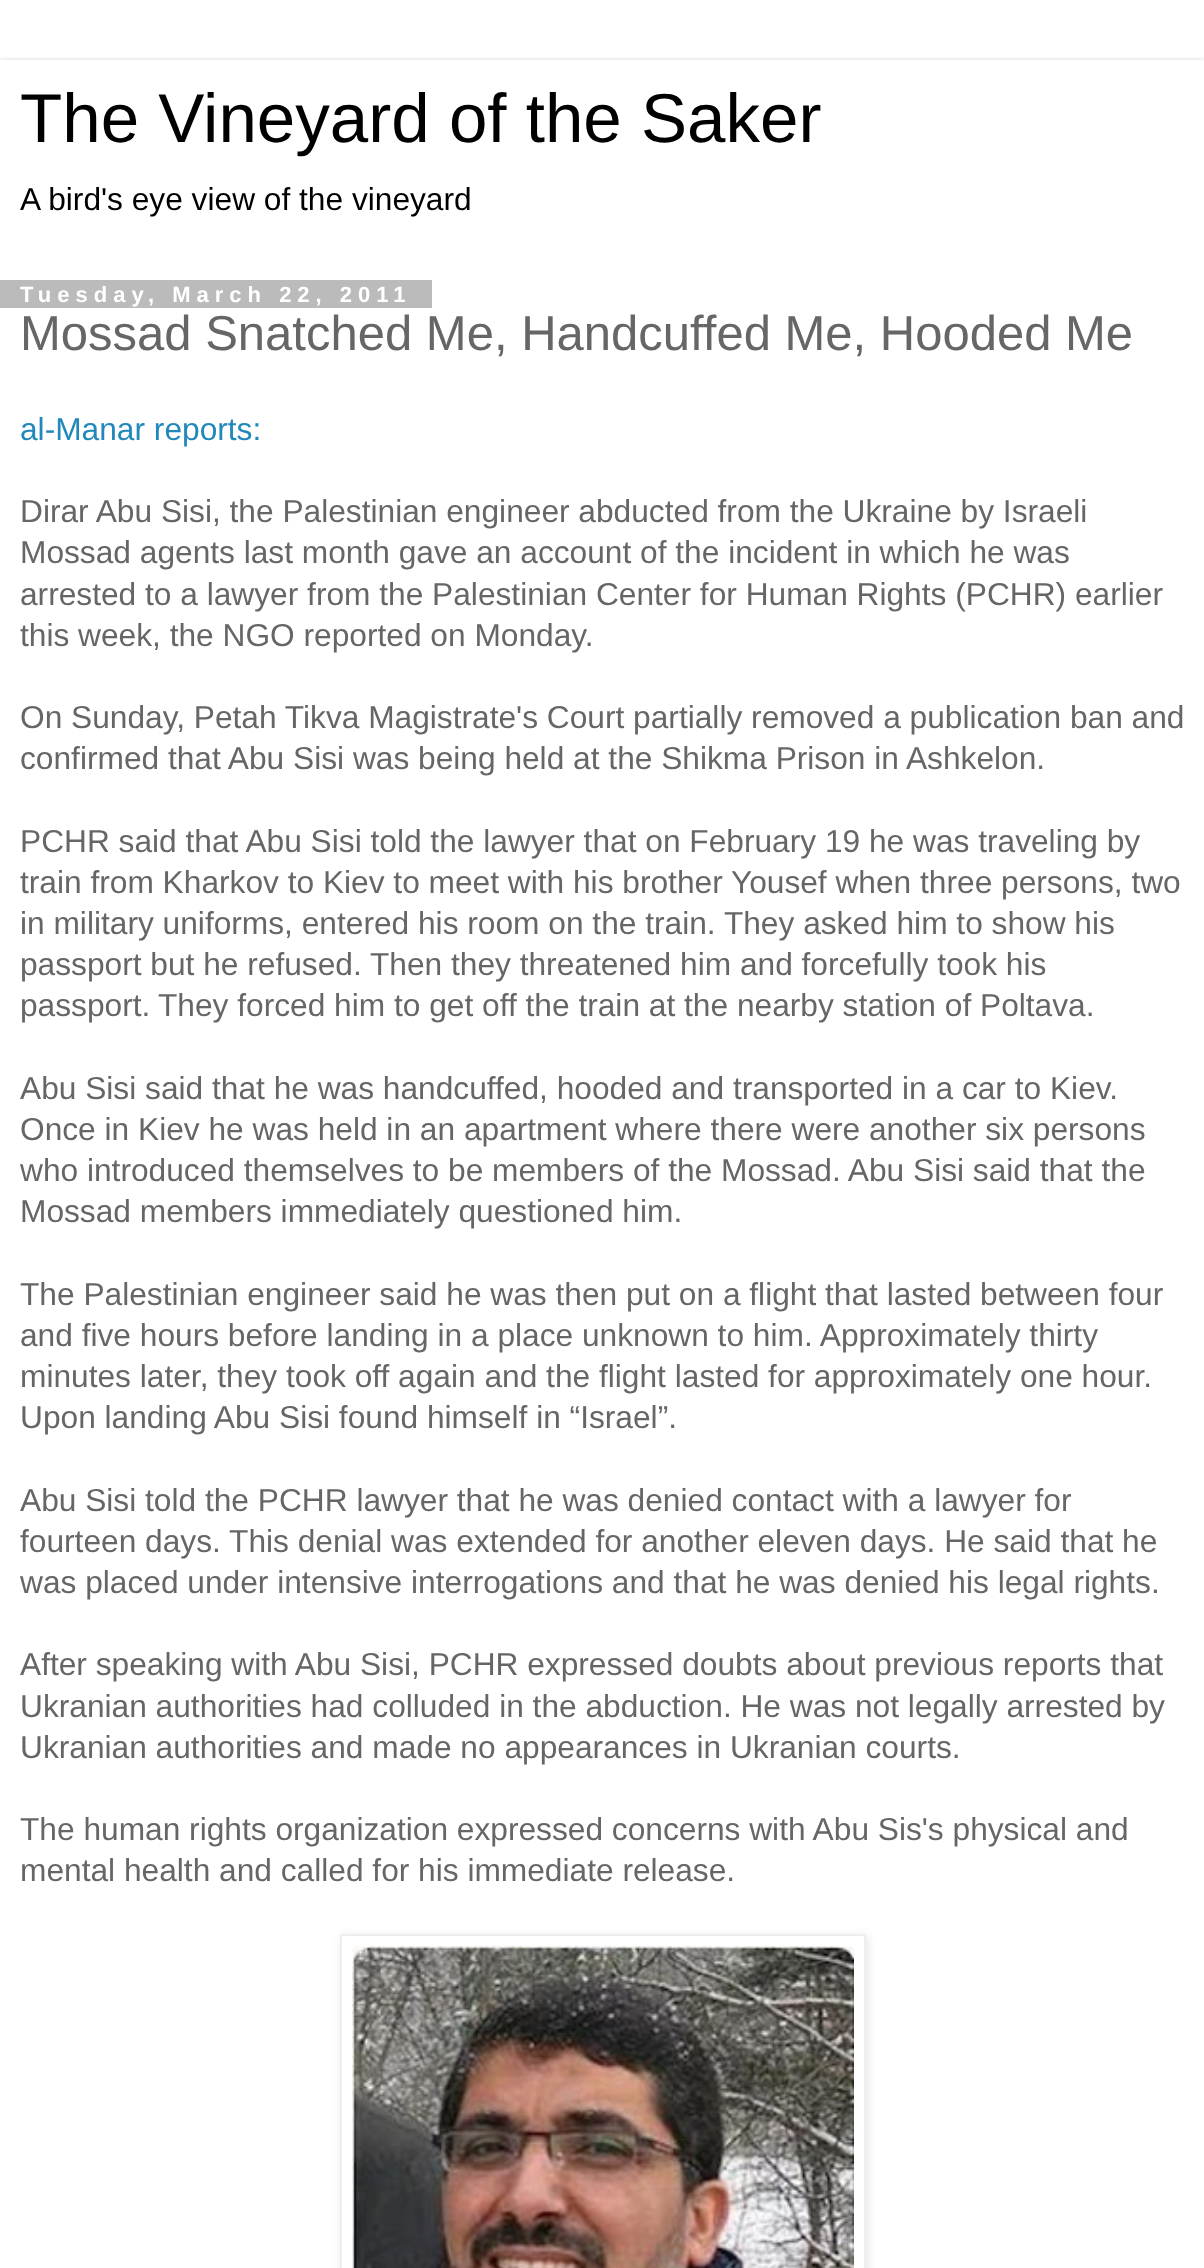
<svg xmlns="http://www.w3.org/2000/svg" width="1204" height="2268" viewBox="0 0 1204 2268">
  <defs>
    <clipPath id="clip1"><rect x="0" y="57" width="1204" height="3"/></clipPath>
    <filter id="blur1" x="-50%" y="-200%" width="200%" height="500%"><feGaussianBlur stdDeviation="3"/></filter>
    <clipPath id="clip2"><path d="M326 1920H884V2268H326ZM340 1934H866V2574H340Z" clip-rule="evenodd"/></clipPath>
    <filter id="blur2" x="-50%" y="-200%" width="200%" height="500%"><feGaussianBlur stdDeviation="5"/></filter>
  </defs>
  <rect width="100%" height="100%" fill="#ffffff"/>
  <g clip-path="url(#clip1)">
    <rect x="0" y="60" width="1204" height="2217" fill="#000000" fill-opacity="0.15" filter="url(#blur1)"/>
  </g>
  <text x="20" y="142" font-family="Liberation Sans" font-size="69.1" fill="#000000">The Vineyard of the Saker</text>
  <text x="20" y="210" font-family="Liberation Sans" font-size="31.7" fill="#000000">A bird's eye view of the vineyard</text>
  <rect x="0" y="280" width="432" height="28" fill="#bbbbbb"/>
  <text x="20" y="302" font-family="Liberation Sans" font-size="22" font-weight="bold" letter-spacing="6" fill="#ffffff">Tuesday, March 22, 2011</text>
  <text x="20" y="350" font-family="Liberation Sans" font-size="49" fill="#666666">Mossad Snatched Me, Handcuffed Me, Hooded Me</text>
  <text x="20" y="440" font-family="Liberation Sans" font-size="31.7" fill="#2288bb">al-Manar reports:</text>
  <text x="20" y="522" font-family="Liberation Sans" font-size="31.7" fill="#666666">Dirar Abu Sisi, the Palestinian engineer abducted from the Ukraine by Israeli</text>
  <text x="20" y="563" font-family="Liberation Sans" font-size="31.7" fill="#666666">Mossad agents last month gave an account of the incident in which he was</text>
  <text x="20" y="605" font-family="Liberation Sans" font-size="31.7" fill="#666666">arrested to a lawyer from the Palestinian Center for Human Rights (PCHR) earlier</text>
  <text x="20" y="646" font-family="Liberation Sans" font-size="31.7" fill="#666666">this week, the NGO reported on Monday.</text>
  <text x="20" y="728" font-family="Liberation Sans" font-size="31.7" fill="#666666">On Sunday, Petah Tikva Magistrate's Court partially removed a publication ban and</text>
  <text x="20" y="769" font-family="Liberation Sans" font-size="31.7" fill="#666666">confirmed that Abu Sisi was being held at the Shikma Prison in Ashkelon.</text>
  <text x="20" y="852" font-family="Liberation Sans" font-size="31.7" fill="#666666">PCHR said that Abu Sisi told the lawyer that on February 19 he was traveling by</text>
  <text x="20" y="893" font-family="Liberation Sans" font-size="31.7" fill="#666666">train from Kharkov to Kiev to meet with his brother Yousef when three persons, two</text>
  <text x="20" y="934" font-family="Liberation Sans" font-size="31.7" fill="#666666">in military uniforms, entered his room on the train. They asked him to show his</text>
  <text x="20" y="975" font-family="Liberation Sans" font-size="31.7" fill="#666666">passport but he refused. Then they threatened him and forcefully took his</text>
  <text x="20" y="1016" font-family="Liberation Sans" font-size="31.7" fill="#666666">passport.</text>
  <text x="158" y="1016" font-family="Liberation Sans" font-size="31.7" fill="#666666">They forced him to get off the train at the nearby station of Poltava.</text>
  <text x="20" y="1099" font-family="Liberation Sans" font-size="31.7" fill="#666666">Abu Sisi said that he was handcuffed, hooded and transported in a car to Kiev.</text>
  <text x="20" y="1140" font-family="Liberation Sans" font-size="31.7" fill="#666666">Once in Kiev he was held in an apartment where there were another six persons</text>
  <text x="20" y="1181" font-family="Liberation Sans" font-size="31.7" fill="#666666">who introduced themselves to be members of the Mossad. Abu Sisi said that the</text>
  <text x="20" y="1222" font-family="Liberation Sans" font-size="31.7" fill="#666666">Mossad members immediately questioned him.</text>
  <text x="20" y="1305" font-family="Liberation Sans" font-size="31.7" fill="#666666">The Palestinian engineer said he was then put on a flight that lasted between four</text>
  <text x="20" y="1346" font-family="Liberation Sans" font-size="31.7" fill="#666666">and five hours before landing in a place unknown to him. Approximately thirty</text>
  <text x="20" y="1387" font-family="Liberation Sans" font-size="31.7" fill="#666666">minutes later, they took off again and the flight lasted for approximately one hour.</text>
  <text x="20" y="1428" font-family="Liberation Sans" font-size="31.7" fill="#666666">Upon landing Abu Sisi found himself in “Israel”.</text>
  <text x="20" y="1511" font-family="Liberation Sans" font-size="31.7" fill="#666666">Abu Sisi told the PCHR lawyer that he was denied contact with a lawyer for</text>
  <text x="20" y="1552" font-family="Liberation Sans" font-size="31.7" fill="#666666">fourteen days. This denial was extended for another eleven days. He said that he</text>
  <text x="20" y="1593" font-family="Liberation Sans" font-size="31.7" fill="#666666">was placed under intensive interrogations and that he was denied his legal rights.</text>
  <text x="20" y="1675" font-family="Liberation Sans" font-size="31.7" fill="#666666">After speaking with Abu Sisi, PCHR expressed doubts about previous reports that</text>
  <text x="20" y="1717" font-family="Liberation Sans" font-size="31.7" fill="#666666">Ukranian authorities had colluded in the abduction. He was not legally arrested by</text>
  <text x="20" y="1758" font-family="Liberation Sans" font-size="31.7" fill="#666666">Ukranian authorities and made no appearances in Ukranian courts.</text>
  <text x="20" y="1840" font-family="Liberation Sans" font-size="31.7" fill="#666666">The human rights organization expressed concerns with Abu Sis's physical and</text>
  <text x="20" y="1881" font-family="Liberation Sans" font-size="31.7" fill="#666666">mental health and called for his immediate release.</text>
  <g clip-path="url(#clip2)">
    <rect x="342" y="1936" width="526" height="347" fill="#000000" fill-opacity="0.1" filter="url(#blur2)"/>
  </g>
  <rect x="341" y="1935" width="524" height="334" fill="none" stroke="#eeeeee" stroke-width="2"/>
  <image x="352" y="1946" width="502" height="322" href="img1.png"/>
</svg>
